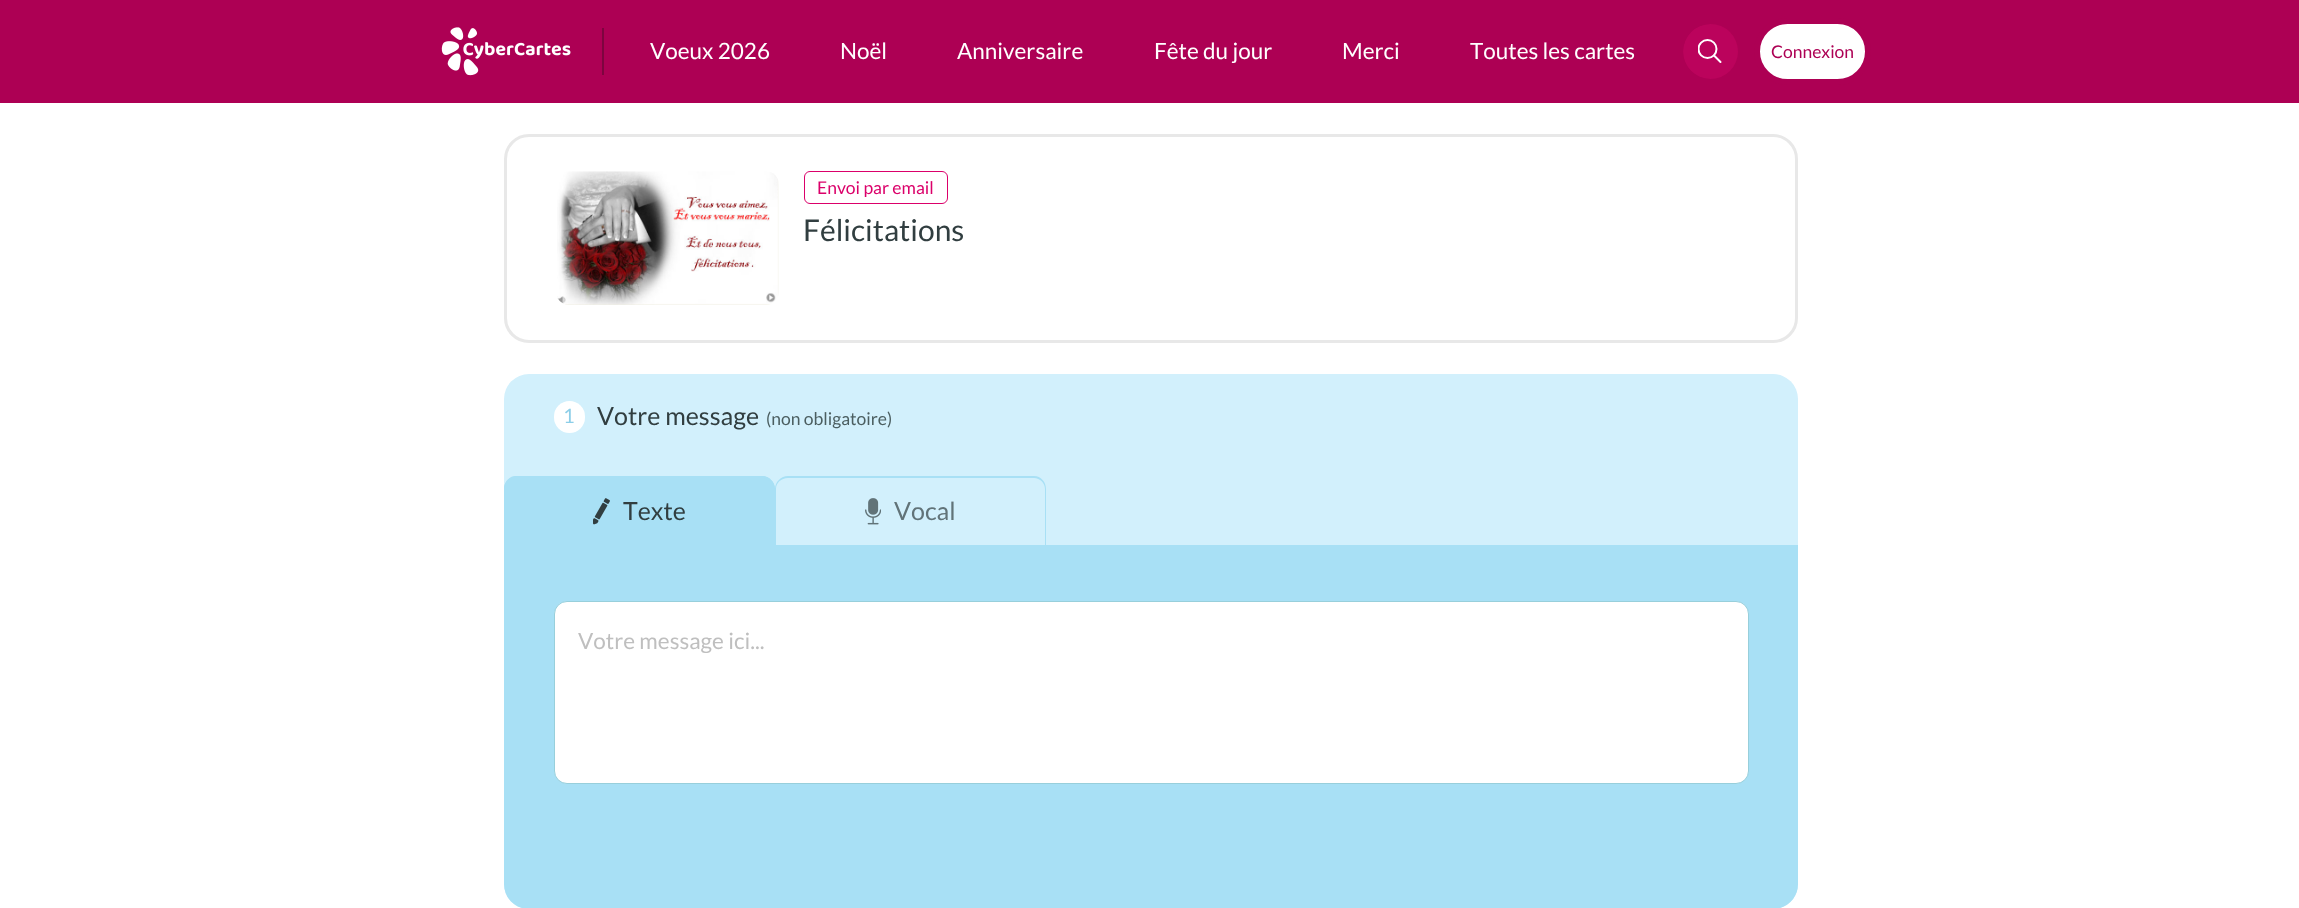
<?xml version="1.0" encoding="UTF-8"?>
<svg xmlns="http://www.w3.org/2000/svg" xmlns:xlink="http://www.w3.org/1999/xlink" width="2299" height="908">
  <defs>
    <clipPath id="clip1"><rect x="1683" y="24" width="65" height="55" rx="27.5" /></clipPath>
    <clipPath id="clip2"><rect x="1698" y="36" width="25" height="30" /></clipPath>
  </defs>
  <rect width="100%" height="100%" fill="#ffffff" />
  <rect width="2299" height="103" fill="#ad0054" />
  <rect x="602" y="28" width="2" height="47" fill="#7e043f" />
  <image x="441" y="27" width="130" height="49" xlink:href="image1.png" />
  <g clip-path="url(#clip1)">
    <circle cx="1710.5" cy="51.5" r="27.5" fill="#bb035c" />
  </g>
  <path d="M 1714 55.5 l 6.5 6.5" fill="none" stroke="#ffffff" stroke-width="2" stroke-linecap="round" />
  <g clip-path="url(#clip2)">
    <circle cx="1707.5" cy="49" r="9" fill="none" stroke="#ffffff" stroke-width="2" />
  </g>
  <rect x="1757" y="21" width="111" height="61" rx="30.5" fill="#ffffff" stroke="#ad0054" stroke-width="6" />
  <rect x="505.5" y="135.5" width="1291" height="206" rx="23.5" fill="none" stroke="#e8e8e8" stroke-width="3" />
  <image x="557" y="171" width="222" height="134" xlink:href="image2.png" />
  <rect x="804.5" y="171.5" width="143" height="32" rx="5.5" fill="none" stroke="#db006a" />
  <rect x="504" y="374" width="1294" height="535" rx="25" fill="#d2f0fc" />
  <rect x="554" y="401" width="31" height="32" rx="15.5" fill="#ffffff" />
  <path d="M 517 476 h 245 c 7 0 13 6 13 13 v 56 h -271 v -56 c 0 -7 6 -13 13 -13 z" fill="#a8e0f5" />
  <path d="M 516 476 h 246 c 7 0 13 6 13 13 v 56 h -271 v -56 c 0 -7 5 -13 12 -13 z m 0 2 h 246 c 7 0 12 5 12 11 v 56 h -269 v -56 c 0 -6 5 -11 11 -11 z" fill="#a8e0f5" fill-rule="evenodd" />
  <image x="593" y="498" width="17" height="27" xlink:href="image3.png" />
  <path d="M 788 476 h 246 c 7 0 12 6 12 13 v 56 h -271 v -56 c 0 -7 6 -13 13 -13 z m 0 2 h 246 c 6 0 11 5 11 11 v 56 h -269 v -56 c 0 -6 5 -11 12 -11 z" fill="#a8e0f5" fill-rule="evenodd" />
  <image x="865" y="498" width="16" height="27" xlink:href="image4.png" />
  <path d="M 504 545 h 1294 v 339 c 0 14 -11 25 -25 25 h -1244 c -14 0 -25 -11 -25 -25 z" fill="#a8e0f5" />
  <rect x="554.5" y="601.5" width="1194" height="182" rx="12.5" fill="#ffffff" stroke="#98cfdb" />
  <text x="650" y="59" style="font-family: Lato; font-size: 22.5px; fill: #ffffff">Voeux 2026</text>
  <text x="840" y="59" style="font-family: Lato; font-size: 22.5px; fill: #ffffff">Noël</text>
  <text x="957" y="59" style="font-family: Lato; font-size: 22.5px; fill: #ffffff">Anniversaire</text>
  <text x="1154" y="59" style="font-family: Lato; font-size: 22.5px; fill: #ffffff">Fête du jour</text>
  <text x="1342" y="59" style="font-family: Lato; font-size: 22.5px; fill: #ffffff">Merci</text>
  <text x="1470" y="59" style="font-family: Lato; font-size: 22.5px; fill: #ffffff">Toutes les cartes</text>
  <text x="1771" y="58" style="font-family: Lato; font-size: 17.5px; fill: #ad0054">Connexion</text>
  <text x="817" y="194" style="font-family: Lato; font-size: 17.5px; fill: #db006a">Envoi par email</text>
  <text x="803" y="241" style="font-family: Lato; font-size: 30px; fill: #313e40">Félicitations</text>
  <text x="563" y="423" style="font-family: Lato; font-size: 20px; fill: #8ccee8">1</text>
  <text x="597" y="425" style="font-family: Lato; font-size: 25px; fill: #313e40">Votre message</text>
  <text x="766" y="425" style="font-family: Lato; font-size: 17.5px; fill: #4b5e60">(non obligatoire)</text>
  <text x="623" y="520" style="font-family: Lato; font-size: 25px; fill: #313e40">Texte</text>
  <text x="894" y="520" style="font-family: Lato; font-size: 25px; fill: #617378">Vocal</text>
  <text x="578" y="649" style="font-family: Lato; font-size: 22.5px; fill: #bfbfbf">Votre message ici...</text>
</svg>
